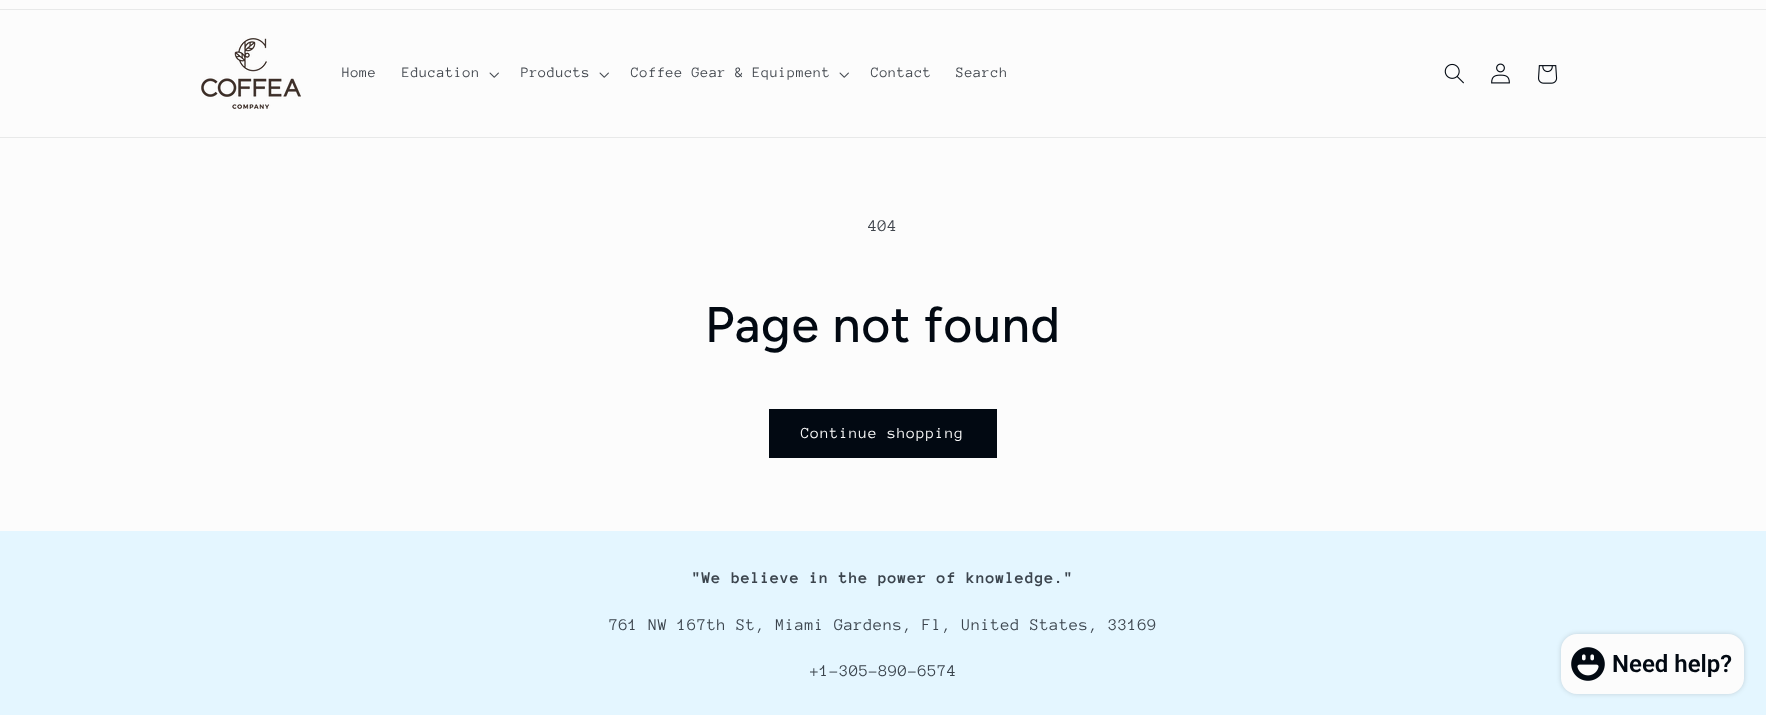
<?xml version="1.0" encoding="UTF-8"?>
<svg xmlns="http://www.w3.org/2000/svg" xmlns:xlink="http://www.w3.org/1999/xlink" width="1766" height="715">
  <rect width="100%" height="100%" fill="#fcfcfc" />
  <rect y="9" width="1766" height="1" fill="#e8e9e9" />
  <rect y="137" width="1766" height="1" fill="#e8e9e9" />
  <image x="201" y="38" width="100" height="71" xlink:href="image1.png" />
  <image x="489" y="72" width="10" height="6" xlink:href="image2.png" />
  <image x="599" y="72" width="10" height="6" xlink:href="image2.png" />
  <image x="839" y="72" width="10" height="6" xlink:href="image2.png" />
  <image x="1444" y="63" width="20" height="21" xlink:href="image3.png" />
  <image x="1491" y="63" width="19" height="21" xlink:href="image4.png" />
  <image x="1538" y="65" width="20" height="19" xlink:href="image5.png" />
  <rect x="769" y="409" width="228" height="49" fill="#020912" />
  <rect y="531" width="1766" height="184" fill="#e4f6ff" />
  <rect x="1561" y="634" width="183" height="60" rx="16" fill="#000000" fill-opacity="0.15" filter="blur(2.5px)" />
  <rect x="1561" y="634" width="183" height="60" rx="16" fill="#fcfcfc" />
  <image x="1571" y="647" width="34" height="34" xlink:href="image6.png" />
  <text x="342" y="77" style="font-family: Anonymous Pro; font-size: 14.75px; letter-spacing: 0.63px; fill: #41464d">Home</text>
  <text x="402" y="77" style="font-family: Anonymous Pro; font-size: 14.75px; letter-spacing: 0.63px; fill: #41464d">Education</text>
  <text x="521" y="77" style="font-family: Anonymous Pro; font-size: 14.75px; letter-spacing: 0.63px; fill: #41464d">Products</text>
  <text x="631" y="77" style="font-family: Anonymous Pro; font-size: 14.75px; letter-spacing: 0.63px; fill: #41464d">Coffee Gear &amp; Equipment</text>
  <text x="871" y="77" style="font-family: Anonymous Pro; font-size: 14.75px; letter-spacing: 0.63px; fill: #41464d">Contact</text>
  <text x="956" y="77" style="font-family: Anonymous Pro; font-size: 14.75px; letter-spacing: 0.63px; fill: #41464d">Search</text>
  <text x="868" y="231" style="font-family: Anonymous Pro; font-size: 16.8px; letter-spacing: 0.63px; fill: #41464d">404</text>
  <text x="705" y="342" style="font-family: Figtree; font-size: 50px; font-weight: 500; letter-spacing: 0.75px; fill: #020912">Page not found</text>
  <text x="801" y="438" style="font-family: Anonymous Pro; font-size: 15.75px; letter-spacing: 1px; fill: #fcfcfc">Continue shopping</text>
  <text x="692" y="583" style="font-family: Anonymous Pro; font-size: 16.8px; font-weight: bold; letter-spacing: 0.63px; fill: #3b444d">"We believe in the power of knowledge."</text>
  <text x="609" y="630" style="font-family: Anonymous Pro; font-size: 16.8px; letter-spacing: 0.63px; fill: #3b444d">761 NW 167th St, Miami Gardens, Fl, United States, 33169</text>
  <text x="810" y="676" style="font-family: Anonymous Pro; font-size: 16.8px; letter-spacing: 0.63px; fill: #3b444d">+1-305-890-6574</text>
  <text x="1612" y="672" style="font-family: Roboto; font-size: 24px; font-weight: 600; fill: #020912">Need help?</text>
</svg>
